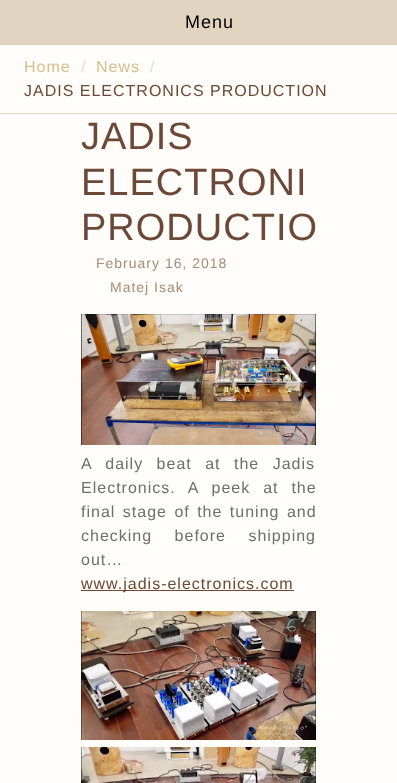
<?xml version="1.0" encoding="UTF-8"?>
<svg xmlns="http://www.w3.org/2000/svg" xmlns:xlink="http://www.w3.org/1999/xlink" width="397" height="783">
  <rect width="100%" height="100%" fill="#fffdf9" />
  <rect width="397" height="45" fill="#e1d4c1" />
  <rect y="113" width="397" height="1" fill="#e1d4c1" />
  <image x="81" y="314" width="235" height="131" xlink:href="image1.png" />
  <rect x="81" y="590" width="213" height="1" fill="#6b4838" />
  <image x="81" y="611" width="235" height="129" xlink:href="image2.png" />
  <image x="81" y="747" width="235" height="36" xlink:href="image3.png" />
  <text x="185" y="28" style="font-family: Liberation Sans; font-size: 18px; letter-spacing: 1px; fill: #000000">Menu</text>
  <text x="24" y="72" style="font-family: Liberation Sans; font-size: 16px; letter-spacing: 1px; fill: #d7bd8b">Home</text>
  <text x="81" y="72" style="font-family: Liberation Sans; font-size: 16px; letter-spacing: 1px; fill: #dddddd">/</text>
  <text x="96" y="72" style="font-family: Liberation Sans; font-size: 16px; letter-spacing: 1px; fill: #d7bd8b">News</text>
  <text x="150" y="72" style="font-family: Liberation Sans; font-size: 16px; letter-spacing: 1px; fill: #dddddd">/</text>
  <text x="24" y="96" style="font-family: Liberation Sans; font-size: 16px; letter-spacing: 1px; fill: #6b4838">JADIS ELECTRONICS PRODUCTION</text>
  <text x="81" y="149" style="font-family: Liberation Sans; font-size: 38px; letter-spacing: 1px; fill: #6b4838">JADIS</text>
  <text x="81" y="195" style="font-family: Liberation Sans; font-size: 38px; letter-spacing: 1px; fill: #6b4838">ELECTRONI</text>
  <text x="81" y="240" style="font-family: Liberation Sans; font-size: 38px; letter-spacing: 1px; fill: #6b4838">PRODUCTIO</text>
  <text x="96" y="268" style="font-family: Liberation Sans; font-size: 14px; letter-spacing: 1px; fill: #a78c77">February 16, 2018</text>
  <text x="110" y="292" style="font-family: Liberation Sans; font-size: 14px; letter-spacing: 1px; fill: #a78c77">Matej Isak</text>
  <text x="81" y="469" word-spacing="8" style="font-family: Liberation Sans; font-size: 16px; letter-spacing: 1px; fill: #6f6e6e">A daily beat at the Jadis</text>
  <text x="81" y="493" word-spacing="7.5" style="font-family: Liberation Sans; font-size: 16px; letter-spacing: 1px; fill: #6f6e6e">Electronics. A peek at the</text>
  <text x="81" y="517" word-spacing="2" style="font-family: Liberation Sans; font-size: 16px; letter-spacing: 1px; fill: #6f6e6e">final stage of the tuning and</text>
  <text x="81" y="541" word-spacing="17" style="font-family: Liberation Sans; font-size: 16px; letter-spacing: 1px; fill: #6f6e6e">checking before shipping</text>
  <text x="81" y="565" style="font-family: Liberation Sans; font-size: 16px; letter-spacing: 1px; fill: #6f6e6e">out…</text>
  <text x="81" y="589" style="font-family: Liberation Sans; font-size: 16px; letter-spacing: 1px; fill: #6b4838">www.jadis-electronics.com</text>
</svg>
